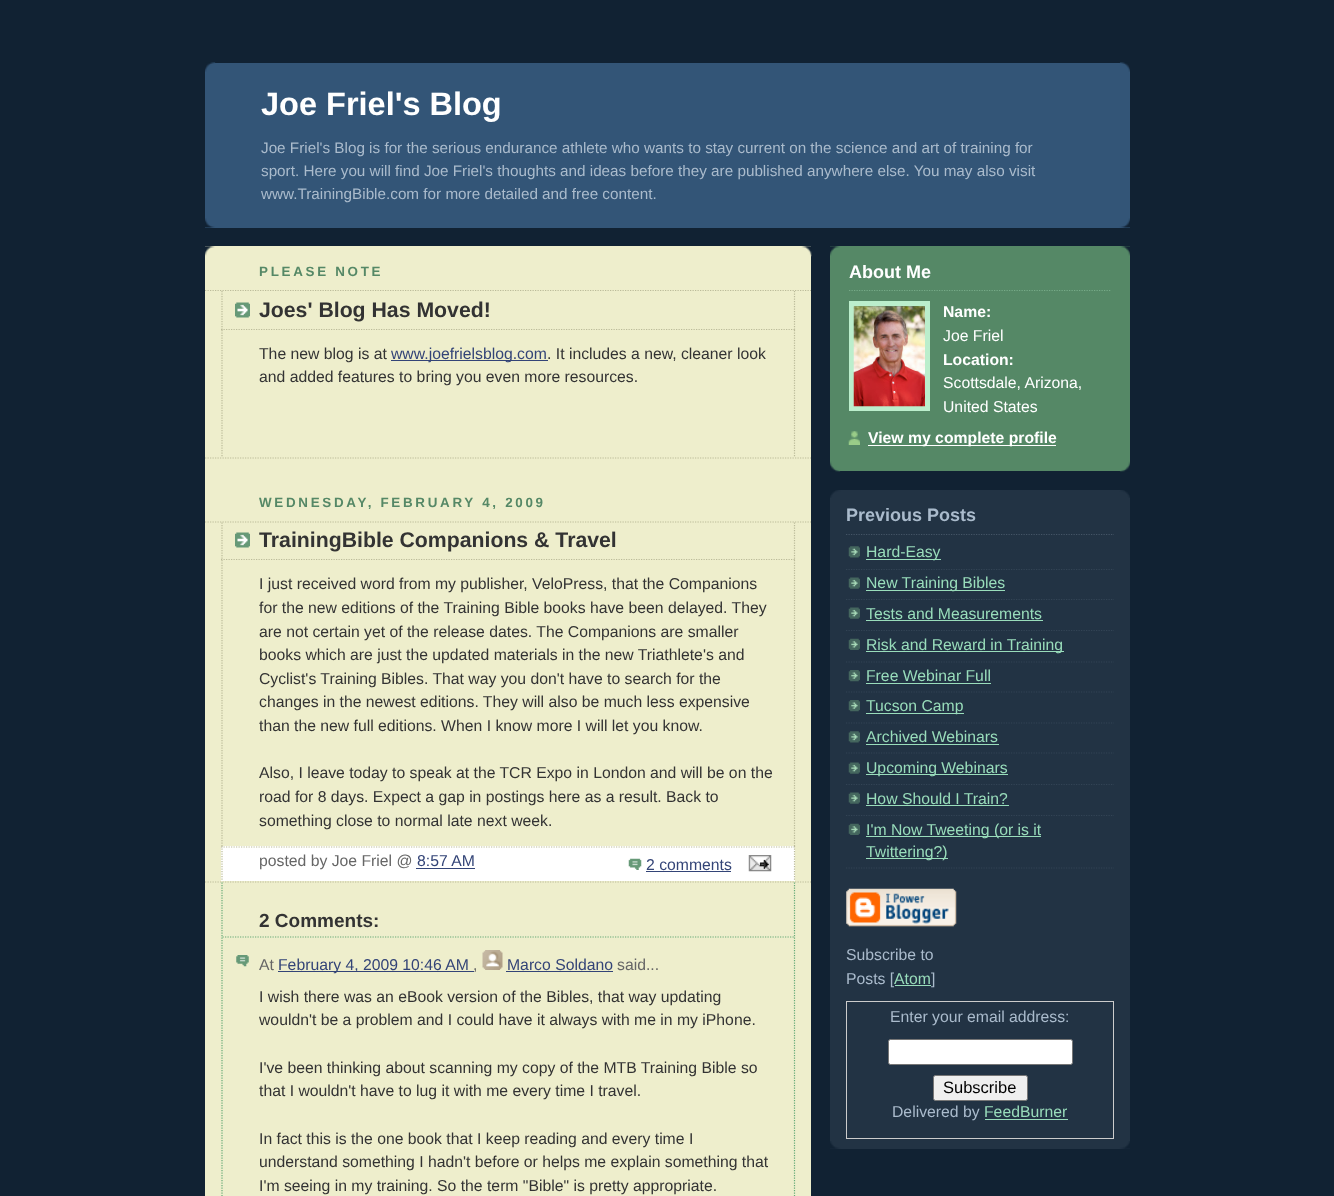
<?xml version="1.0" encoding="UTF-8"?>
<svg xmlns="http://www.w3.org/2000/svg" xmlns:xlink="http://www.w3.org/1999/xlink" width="1334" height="1196">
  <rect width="100%" height="100%" fill="#112233" />
  <rect x="205" y="63" width="925" height="165" fill="#335577" />
  <image x="205" y="218" width="925" height="10" xlink:href="image1.png" />
  <image x="205" y="62" width="925" height="10" xlink:href="image2.png" />
  <rect x="205" y="246" width="606" height="950" fill="#eeeecc" />
  <image x="205" y="246" width="607" height="11" xlink:href="image3.png" />
  <path d="M 205 290.5 h 606" fill="none" stroke="#bbbb99" stroke-width="1.2" stroke-dasharray="1.25 1.25" />
  <path d="M 205 458 h 606" fill="none" stroke="#bbbb99" stroke-width="1.2" stroke-dasharray="1.25 1.25" />
  <image x="235" y="302" width="15" height="16" xlink:href="image4.png" />
  <path d="M 794.5 291 v 39" fill="none" stroke="#bbbb99" stroke-width="1.2" stroke-dasharray="1.25 1.25" />
  <path d="M 221 329.5 h 574" fill="none" stroke="#bbbb99" stroke-width="1.2" stroke-dasharray="1.25 1.25" />
  <path d="M 222 291 v 39" fill="none" stroke="#bbbb99" stroke-width="1.2" stroke-dasharray="1.25 1.25" />
  <path d="M 794.5 330 v 127.5" fill="none" stroke="#bbbb99" stroke-width="1.2" stroke-dasharray="1.25 1.25" />
  <path d="M 222 330 v 127.5" fill="none" stroke="#bbbb99" stroke-width="1.2" stroke-dasharray="1.25 1.25" />
  <rect x="391" y="360" width="157" height="1" fill="#334477" />
  <path d="M 205 522 h 606" fill="none" stroke="#bbbb99" stroke-width="1.2" stroke-dasharray="1.25 1.25" />
  <path d="M 205 882 h 606" fill="none" stroke="#bbbb99" stroke-width="1.2" stroke-dasharray="1.25 1.25" />
  <image x="235" y="532" width="15" height="16" xlink:href="image4.png" />
  <path d="M 794.5 522.5 v 37.5" fill="none" stroke="#bbbb99" stroke-width="1.2" stroke-dasharray="1.25 1.25" />
  <path d="M 221 559.5 h 574" fill="none" stroke="#bbbb99" stroke-width="1.2" stroke-dasharray="1.25 1.25" />
  <path d="M 222 522.5 v 37.5" fill="none" stroke="#bbbb99" stroke-width="1.2" stroke-dasharray="1.25 1.25" />
  <path d="M 794.5 560 v 286" fill="none" stroke="#bbbb99" stroke-width="1.2" stroke-dasharray="1.25 1.25" />
  <path d="M 222 560 v 286" fill="none" stroke="#bbbb99" stroke-width="1.2" stroke-dasharray="1.25 1.25" />
  <rect x="221" y="846" width="574" height="35" fill="#ffffff" />
  <path d="M 221 847 h 574" fill="none" stroke="#bbbb99" stroke-width="1.2" stroke-dasharray="1.25 1.25" />
  <path d="M 794.5 846 v 35" fill="none" stroke="#bbbb99" stroke-width="1.2" stroke-dasharray="1.25 1.25" />
  <path d="M 222 846 v 35" fill="none" stroke="#bbbb99" stroke-width="1.2" stroke-dasharray="1.25 1.25" />
  <rect x="416" y="868" width="59" height="1" fill="#334477" />
  <image x="628" y="858" width="14" height="12" xlink:href="image5.png" />
  <rect x="646" y="871" width="85" height="1" fill="#334477" />
  <image x="748" y="855" width="24" height="17" xlink:href="image6.png" />
  <path d="M 794.5 882.5 v 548.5" fill="none" stroke="#66aa77" stroke-width="1.2" stroke-dasharray="1.25 1.25" />
  <path d="M 222 882.5 v 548.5" fill="none" stroke="#66aa77" stroke-width="1.2" stroke-dasharray="1.25 1.25" />
  <path d="M 222.5 937 h 571.5" fill="none" stroke="#66aa77" stroke-width="1.2" stroke-dasharray="1.25 1.25" />
  <image x="236" y="955" width="13" height="12" xlink:href="image7.png" />
  <rect x="278" y="971" width="196" height="1" fill="#334477" />
  <image x="482" y="950" width="21" height="20" xlink:href="image8.png" />
  <rect x="506" y="971" width="107" height="1" fill="#334477" />
  <rect x="830" y="246" width="300" height="225" fill="#558866" />
  <image x="830" y="461" width="300" height="11" xlink:href="image9.png" />
  <image x="830" y="246" width="300" height="10" xlink:href="image10.png" />
  <path d="M 849 290.5 h 262" fill="none" stroke="#77aa88" stroke-width="1.2" stroke-dasharray="1.25 1.25" />
  <rect x="851.5" y="303.5" width="76" height="105" fill="none" stroke="#bbeecc" stroke-width="5" />
  <image x="853" y="306" width="72" height="101" xlink:href="image11.png" />
  <image x="848" y="431" width="12" height="14" xlink:href="image12.png" />
  <rect x="868" y="445" width="188" height="1" fill="#ffffff" />
  <rect x="830" y="490" width="300" height="659" fill="#223344" />
  <image x="830" y="490" width="300" height="8" xlink:href="image13.png" />
  <image x="830" y="1141" width="300" height="8" xlink:href="image14.png" />
  <path d="M 846 534.5 h 268" fill="none" stroke="#445566" stroke-width="1.2" stroke-dasharray="1.25 1.25" />
  <image x="848" y="546" width="12" height="12" xlink:href="image15.png" />
  <path d="M 846 569.5 h 268" fill="none" stroke="#334455" stroke-width="1.2" stroke-dasharray="1.25 1.25" />
  <rect x="866" y="559" width="75" height="1" fill="#99ddbb" />
  <image x="848" y="577" width="12" height="12" xlink:href="image16.png" />
  <path d="M 846 599.5 h 268" fill="none" stroke="#334455" stroke-width="1.2" stroke-dasharray="1.25 1.25" />
  <rect x="866" y="590" width="139" height="1" fill="#99ddbb" />
  <image x="848" y="607" width="12" height="12" xlink:href="image16.png" />
  <path d="M 846 630.5 h 268" fill="none" stroke="#334455" stroke-width="1.2" stroke-dasharray="1.25 1.25" />
  <rect x="866" y="620" width="177" height="1" fill="#99ddbb" />
  <image x="848" y="638" width="12" height="12" xlink:href="image17.png" />
  <path d="M 846 662 h 268" fill="none" stroke="#334455" stroke-width="1.2" stroke-dasharray="1.25 1.25" />
  <rect x="866" y="651" width="198" height="1" fill="#99ddbb" />
  <image x="848" y="670" width="12" height="12" xlink:href="image18.png" />
  <path d="M 846 692 h 268" fill="none" stroke="#334455" stroke-width="1.2" stroke-dasharray="1.25 1.25" />
  <rect x="866" y="683" width="125" height="1" fill="#99ddbb" />
  <image x="848" y="700" width="12" height="12" xlink:href="image18.png" />
  <path d="M 846 723 h 268" fill="none" stroke="#334455" stroke-width="1.2" stroke-dasharray="1.25 1.25" />
  <rect x="866" y="713" width="98" height="1" fill="#99ddbb" />
  <image x="848" y="731" width="12" height="12" xlink:href="image15.png" />
  <path d="M 846 753 h 268" fill="none" stroke="#334455" stroke-width="1.2" stroke-dasharray="1.25 1.25" />
  <rect x="866" y="744" width="133" height="1" fill="#99ddbb" />
  <image x="848" y="762" width="12" height="12" xlink:href="image16.png" />
  <path d="M 846 784.5 h 268" fill="none" stroke="#334455" stroke-width="1.2" stroke-dasharray="1.25 1.25" />
  <rect x="866" y="774" width="142" height="1" fill="#99ddbb" />
  <image x="848" y="792" width="12" height="12" xlink:href="image16.png" />
  <path d="M 846 815.5 h 268" fill="none" stroke="#334455" stroke-width="1.2" stroke-dasharray="1.25 1.25" />
  <rect x="866" y="805" width="143" height="1" fill="#99ddbb" />
  <image x="848" y="823" width="12" height="12" xlink:href="image17.png" />
  <path d="M 846 868 h 268" fill="none" stroke="#334455" stroke-width="1.2" stroke-dasharray="1.25 1.25" />
  <rect x="866" y="836" width="175" height="1" fill="#99ddbb" />
  <rect x="866" y="858" width="82" height="1" fill="#99ddbb" />
  <image x="846" y="888" width="111" height="39" xlink:href="image19.png" />
  <rect x="895" y="985" width="36" height="1" fill="#99ddbb" />
  <rect x="846.5" y="1001.5" width="267" height="137" fill="none" stroke="#cccccc" />
  <rect x="888.5" y="1039.5" width="184" height="25" rx="2" fill="#ffffff" stroke="#767676" />
  <rect x="933.5" y="1075.5" width="94" height="25" rx="2" fill="#efefef" stroke="#767676" />
  <rect x="985" y="1119" width="83" height="1" fill="#99ddbb" />
  <text x="261" y="115" style="font-family: Liberation Sans; font-size: 32.5px; font-weight: bold; fill: #ffffff">Joe Friel's Blog</text>
  <text x="261" y="153" style="font-family: Liberation Sans; font-size: 15.28px; fill: #aabbcc">Joe Friel's Blog is for the serious endurance athlete who wants to stay current on the science and art of training for</text>
  <text x="261" y="176" style="font-family: Liberation Sans; font-size: 15.28px; fill: #aabbcc">sport. Here you will find Joe Friel's thoughts and ideas before they are published anywhere else. You may also visit</text>
  <text x="261" y="199" style="font-family: Liberation Sans; font-size: 15.28px; fill: #aabbcc">www.TrainingBible.com for more detailed and free content.</text>
  <text x="259" y="276" style="font-family: Liberation Sans; font-size: 13.4px; font-weight: bold; letter-spacing: 2.7px; fill: #558866">PLEASE NOTE</text>
  <text x="259" y="317" style="font-family: Liberation Sans; font-size: 21.25px; font-weight: bold; fill: #333333">Joes' Blog Has Moved!</text>
  <text x="259" y="359" style="font-family: Liberation Sans; font-size: 15.75px; fill: #333333">The new blog is at</text>
  <text x="391" y="359" style="font-family: Liberation Sans; font-size: 15.75px; fill: #334477">www.joefrielsblog.com</text>
  <text x="547" y="359" style="font-family: Liberation Sans; font-size: 15.75px; fill: #333333">. It includes a new, cleaner look</text>
  <text x="259" y="382" style="font-family: Liberation Sans; font-size: 15.75px; fill: #333333">and added features to bring you even more resources.</text>
  <text x="259" y="507" style="font-family: Liberation Sans; font-size: 13.4px; font-weight: bold; letter-spacing: 2.7px; fill: #558866">WEDNESDAY, FEBRUARY 4, 2009</text>
  <text x="259" y="547" style="font-family: Liberation Sans; font-size: 21.25px; font-weight: bold; fill: #333333">TrainingBible Companions &amp; Travel</text>
  <text x="259" y="589" style="font-family: Liberation Sans; font-size: 15.75px; fill: #333333">I just received word from my publisher, VeloPress, that the Companions</text>
  <text x="259" y="613" style="font-family: Liberation Sans; font-size: 15.75px; fill: #333333">for the new editions of the Training Bible books have been delayed. They</text>
  <text x="259" y="637" style="font-family: Liberation Sans; font-size: 15.75px; fill: #333333">are not certain yet of the release dates. The Companions are smaller</text>
  <text x="259" y="660" style="font-family: Liberation Sans; font-size: 15.75px; fill: #333333">books which are just the updated materials in the new Triathlete's and</text>
  <text x="259" y="684" style="font-family: Liberation Sans; font-size: 15.75px; fill: #333333">Cyclist's Training Bibles. That way you don't have to search for the</text>
  <text x="259" y="707" style="font-family: Liberation Sans; font-size: 15.75px; fill: #333333">changes in the newest editions. They will also be much less expensive</text>
  <text x="259" y="731" style="font-family: Liberation Sans; font-size: 15.75px; fill: #333333">than the new full editions. When I know more I will let you know.</text>
  <text x="259" y="778" style="font-family: Liberation Sans; font-size: 15.75px; fill: #333333">Also, I leave today to speak at the TCR Expo in London and will be on the</text>
  <text x="259" y="802" style="font-family: Liberation Sans; font-size: 15.75px; fill: #333333">road for 8 days. Expect a gap in postings here as a result. Back to</text>
  <text x="259" y="826" style="font-family: Liberation Sans; font-size: 15.75px; fill: #333333">something close to normal late next week.</text>
  <text x="259" y="866" style="font-family: Liberation Sans; font-size: 15.75px; fill: #666666">posted by Joe Friel @</text>
  <text x="417" y="866" style="font-family: Liberation Sans; font-size: 15.75px; fill: #334477">8:57 AM</text>
  <text x="646" y="870" style="font-family: Liberation Sans; font-size: 15.75px; fill: #334477">2 comments</text>
  <text x="259" y="927" style="font-family: Liberation Sans; font-size: 19px; font-weight: bold; fill: #333333">2 Comments:</text>
  <text x="259" y="970" style="font-family: Liberation Sans; font-size: 15.75px; fill: #666666">At</text>
  <text x="278" y="970" style="font-family: Liberation Sans; font-size: 15.75px; fill: #334477">February 4, 2009 10:46 AM</text>
  <text x="473" y="970" style="font-family: Liberation Sans; font-size: 15.75px; fill: #666666">,</text>
  <text x="507" y="970" style="font-family: Liberation Sans; font-size: 15.75px; fill: #334477">Marco Soldano</text>
  <text x="617" y="970" style="font-family: Liberation Sans; font-size: 15.75px; fill: #666666">said...</text>
  <text x="259" y="1002" style="font-family: Liberation Sans; font-size: 15.75px; fill: #333333">I wish there was an eBook version of the Bibles, that way updating</text>
  <text x="259" y="1025" style="font-family: Liberation Sans; font-size: 15.75px; fill: #333333">wouldn't be a problem and I could have it always with me in my iPhone.</text>
  <text x="259" y="1073" style="font-family: Liberation Sans; font-size: 15.75px; fill: #333333">I've been thinking about scanning my copy of the MTB Training Bible so</text>
  <text x="259" y="1096" style="font-family: Liberation Sans; font-size: 15.75px; fill: #333333">that I wouldn't have to lug it with me every time I travel.</text>
  <text x="259" y="1144" style="font-family: Liberation Sans; font-size: 15.75px; fill: #333333">In fact this is the one book that I keep reading and every time I</text>
  <text x="259" y="1167" style="font-family: Liberation Sans; font-size: 15.75px; fill: #333333">understand something I hadn't before or helps me explain something that</text>
  <text x="259" y="1191" style="font-family: Liberation Sans; font-size: 15.75px; fill: #333333">I'm seeing in my training. So the term "Bible" is pretty appropriate.</text>
  <text x="849" y="278" style="font-family: Liberation Sans; font-size: 18px; font-weight: bold; fill: #ffffff">About Me</text>
  <text x="943" y="317" style="font-family: Liberation Sans; font-size: 15.75px; font-weight: bold; fill: #ffffff">Name:</text>
  <text x="943" y="341" style="font-family: Liberation Sans; font-size: 15.75px; fill: #ffffff">Joe Friel</text>
  <text x="943" y="365" style="font-family: Liberation Sans; font-size: 15.75px; font-weight: bold; fill: #ffffff">Location:</text>
  <text x="943" y="388" style="font-family: Liberation Sans; font-size: 15.75px; fill: #ffffff">Scottsdale, Arizona,</text>
  <text x="943" y="412" style="font-family: Liberation Sans; font-size: 15.75px; fill: #ffffff">United States</text>
  <text x="868" y="443" style="font-family: Liberation Sans; font-size: 15.75px; font-weight: bold; fill: #ffffff">View my complete profile</text>
  <text x="846" y="521" style="font-family: Liberation Sans; font-size: 18px; font-weight: bold; fill: #aabbcc">Previous Posts</text>
  <text x="866" y="557" style="font-family: Liberation Sans; font-size: 15.75px; fill: #99ddbb">Hard-Easy</text>
  <text x="866" y="588" style="font-family: Liberation Sans; font-size: 15.75px; fill: #99ddbb">New Training Bibles</text>
  <text x="866" y="619" style="font-family: Liberation Sans; font-size: 15.75px; fill: #99ddbb">Tests and Measurements</text>
  <text x="866" y="650" style="font-family: Liberation Sans; font-size: 15.75px; fill: #99ddbb">Risk and Reward in Training</text>
  <text x="866" y="681" style="font-family: Liberation Sans; font-size: 15.75px; fill: #99ddbb">Free Webinar Full</text>
  <text x="866" y="711" style="font-family: Liberation Sans; font-size: 15.75px; fill: #99ddbb">Tucson Camp</text>
  <text x="866" y="742" style="font-family: Liberation Sans; font-size: 15.75px; fill: #99ddbb">Archived Webinars</text>
  <text x="866" y="773" style="font-family: Liberation Sans; font-size: 15.75px; fill: #99ddbb">Upcoming Webinars</text>
  <text x="866" y="804" style="font-family: Liberation Sans; font-size: 15.75px; fill: #99ddbb">How Should I Train?</text>
  <text x="866" y="835" style="font-family: Liberation Sans; font-size: 15.75px; fill: #99ddbb">I'm Now Tweeting (or is it</text>
  <text x="866" y="857" style="font-family: Liberation Sans; font-size: 15.75px; fill: #99ddbb">Twittering?)</text>
  <text x="846" y="960" style="font-family: Liberation Sans; font-size: 15.75px; fill: #aabbcc">Subscribe to</text>
  <text x="846" y="984" style="font-family: Liberation Sans; font-size: 15.75px; fill: #aabbcc">Posts [</text>
  <text x="894" y="984" style="font-family: Liberation Sans; font-size: 15.75px; fill: #99ddbb">Atom</text>
  <text x="931" y="984" style="font-family: Liberation Sans; font-size: 15.75px; fill: #aabbcc">]</text>
  <text x="890" y="1022" style="font-family: Liberation Sans; font-size: 15.75px; fill: #aabbcc">Enter your email address:</text>
  <text x="943" y="1093" style="font-family: Liberation Sans; font-size: 16.5px; fill: #000000">Subscribe</text>
  <text x="892" y="1117" style="font-family: Liberation Sans; font-size: 15.75px; fill: #aabbcc">Delivered by</text>
  <text x="984" y="1117" style="font-family: Liberation Sans; font-size: 15.75px; fill: #99ddbb">FeedBurner</text>
</svg>
